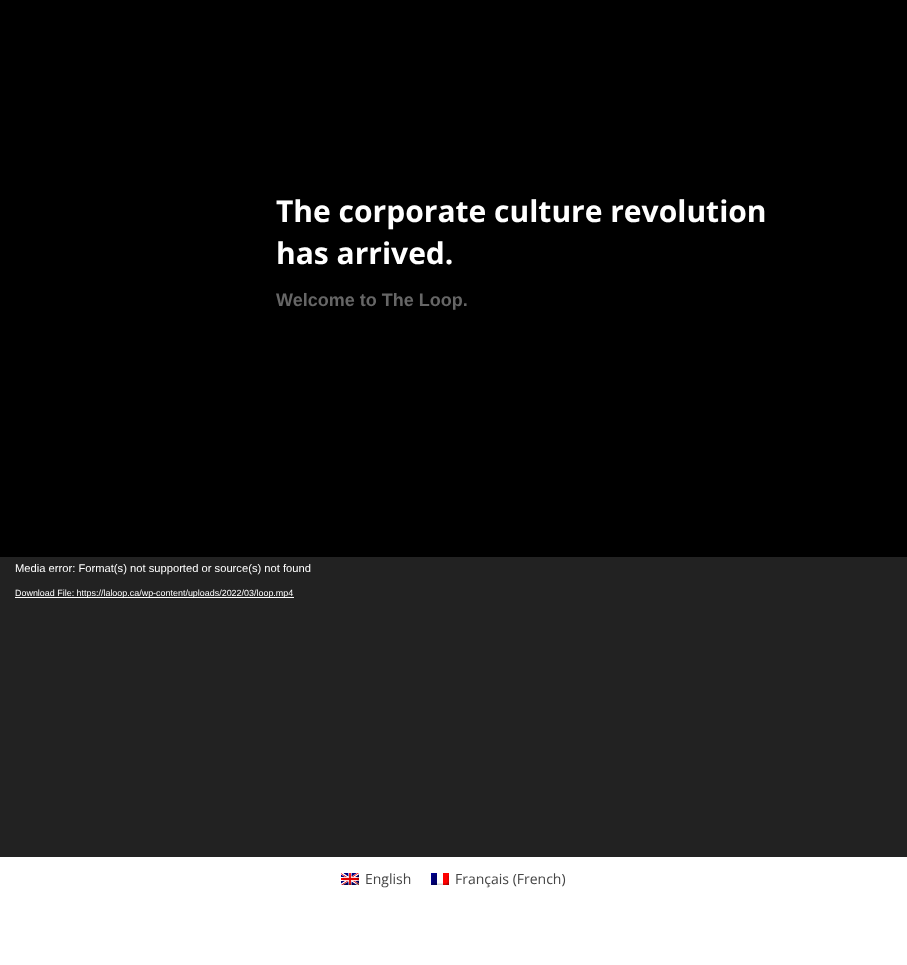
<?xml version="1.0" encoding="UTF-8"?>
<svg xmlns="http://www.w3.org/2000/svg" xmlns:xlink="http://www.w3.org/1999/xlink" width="907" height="965">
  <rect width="100%" height="100%" fill="#ffffff" />
  <rect width="907" height="557" fill="#000000" />
  <rect y="557" width="907" height="300" fill="#222222" />
  <rect x="15" y="597" width="279" height="1" fill="#ffffff" />
  <image x="341" y="873" width="18" height="12" xlink:href="image1.png" />
  <image x="431" y="873" width="18" height="12" xlink:href="image2.png" />
  <text x="276" y="222" style="font-family: Open Sans; font-size: 30px; font-weight: bold; fill: #ffffff">The corporate culture revolution</text>
  <text x="276" y="264" style="font-family: Open Sans; font-size: 30px; font-weight: bold; fill: #ffffff">has arrived.</text>
  <text x="276" y="306" style="font-family: Liberation Sans; font-size: 18px; font-weight: bold; fill: #666666">Welcome to The Loop.</text>
  <text x="15" y="572" style="font-family: Liberation Sans; font-size: 11.2px; fill: #ffffff">Media error: Format(s) not supported or source(s) not found</text>
  <text x="15" y="596" style="font-family: Liberation Sans; font-size: 8.95px; fill: #ffffff">Download File: https://laloop.ca/wp-content/uploads/2022/03/loop.mp4</text>
  <text x="365" y="884" style="font-family: Open Sans; font-size: 14px; fill: #444444">English</text>
  <text x="455" y="884" style="font-family: Open Sans; font-size: 14px; fill: #444444">Français (French)</text>
</svg>
